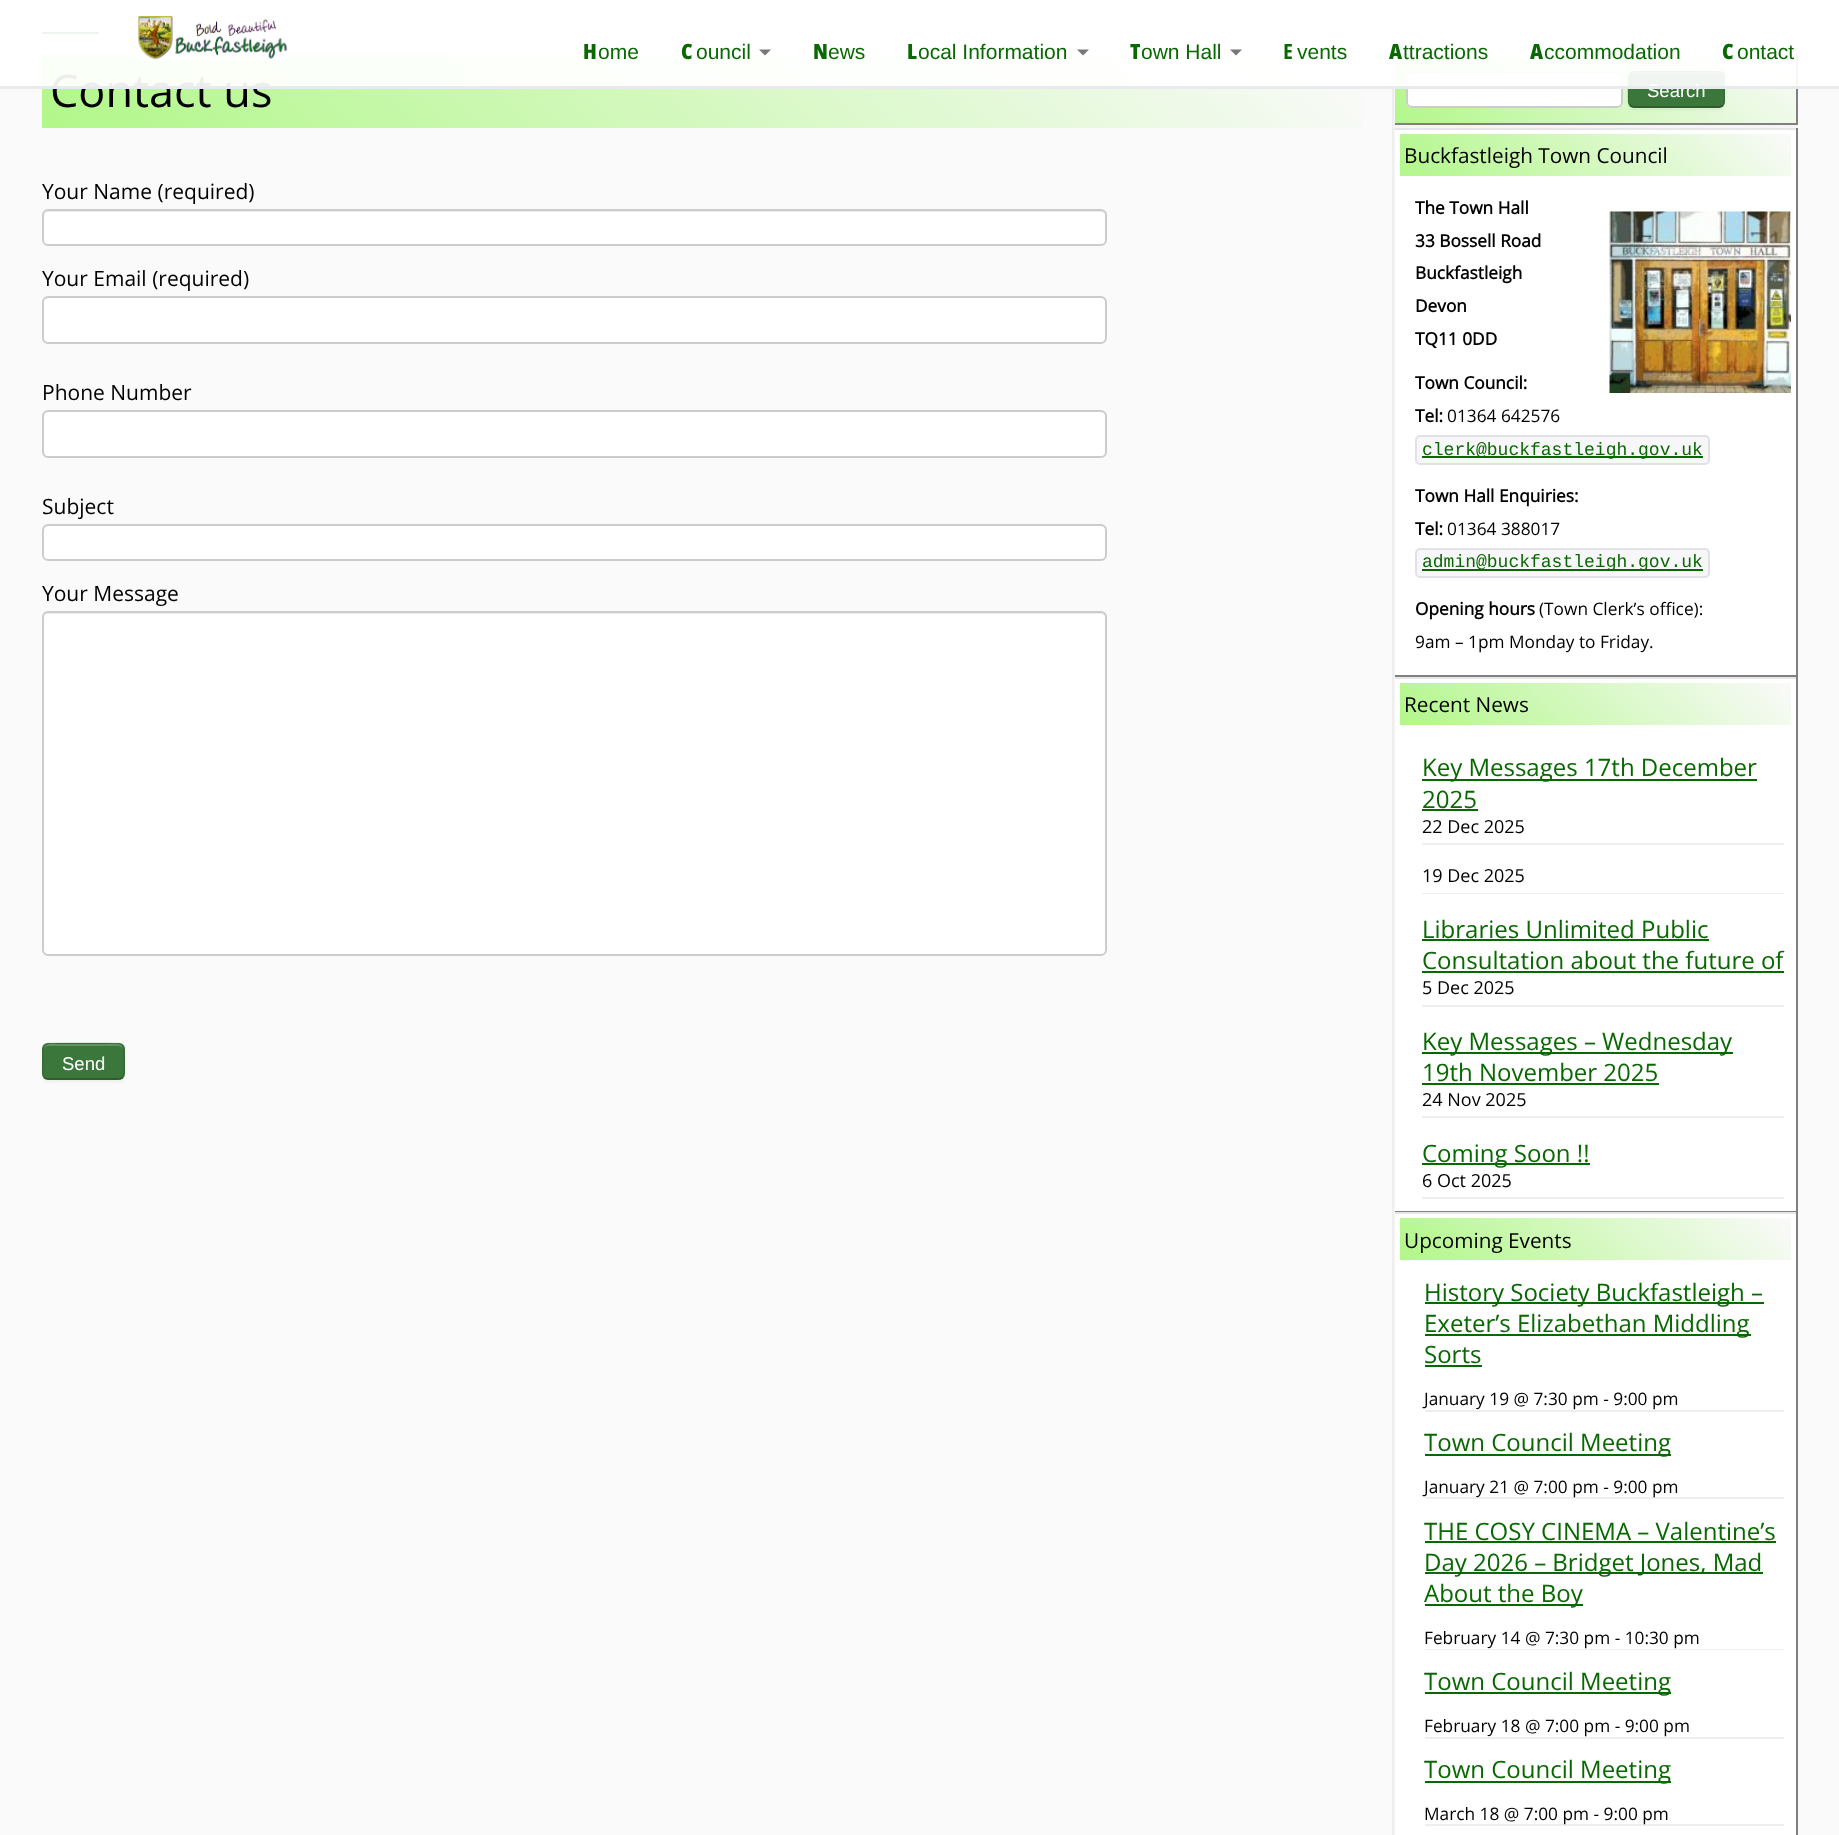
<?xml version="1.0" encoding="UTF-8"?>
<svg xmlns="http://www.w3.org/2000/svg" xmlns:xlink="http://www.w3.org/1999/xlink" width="1839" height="1835">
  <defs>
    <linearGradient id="g1" gradientUnits="userSpaceOnUse" x1="354" y1="440" x2="1050" y2="-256"><stop offset="0" stop-color="#b2f78a" /><stop offset="1" stop-color="#fafafa" /></linearGradient>
    <linearGradient id="g2" gradientUnits="userSpaceOnUse" x1="1478" y1="206" x2="1712" y2="-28"><stop offset="0" stop-color="#b2f78a" /><stop offset="1" stop-color="#fafafa" /></linearGradient>
    <linearGradient id="g3" gradientUnits="userSpaceOnUse" x1="1487" y1="263" x2="1704" y2="46"><stop offset="0" stop-color="#b2f78a" /><stop offset="1" stop-color="#fafafa" /></linearGradient>
    <linearGradient id="g4" gradientUnits="userSpaceOnUse" x1="1487" y1="812" x2="1704" y2="595"><stop offset="0" stop-color="#b2f78a" /><stop offset="1" stop-color="#fafafa" /></linearGradient>
    <linearGradient id="g5" gradientUnits="userSpaceOnUse" x1="1487" y1="1347" x2="1704" y2="1131"><stop offset="0" stop-color="#b2f78a" /><stop offset="1" stop-color="#fafafa" /></linearGradient>
  </defs>
  <rect width="100%" height="100%" fill="#fafafa" />
  <rect x="42" y="32" width="57" height="2" fill="#086801" />
  <rect x="42" y="56" width="1320" height="72" fill="url(#g1)" />
  <rect x="42" y="209" width="1065" height="37" rx="6" fill="#ffffff" />
  <path d="M 48 212 h 1053 c 2 0 5 2 5 4 c 0 -3 -2 -6 -5 -6 h -1052 c -3 0 -5 3 -5 6 c 0 -2 2 -4 4 -4 z" fill="#ececec" />
  <rect x="43" y="210" width="1063" height="35" rx="5" fill="none" stroke="#cccccc" stroke-width="2" />
  <rect x="42" y="296" width="1065" height="48" rx="6" fill="#ffffff" />
  <path d="M 48 298 h 1053 c 2 0 5 3 5 5 c 0 -3 -2 -6 -5 -6 h -1052 c -3 0 -5 3 -5 6 c 0 -2 2 -5 4 -5 z" fill="#ececec" />
  <rect x="43" y="297" width="1063" height="46" rx="5" fill="none" stroke="#cccccc" stroke-width="2" />
  <rect x="42" y="410" width="1065" height="48" rx="6" fill="#ffffff" />
  <path d="M 48 412 h 1053 c 2 0 5 3 5 5 c 0 -3 -2 -6 -5 -6 h -1052 c -3 0 -5 3 -5 6 c 0 -2 2 -5 4 -5 z" fill="#ececec" />
  <rect x="43" y="411" width="1063" height="46" rx="5" fill="none" stroke="#cccccc" stroke-width="2" />
  <rect x="42" y="524" width="1065" height="37" rx="6" fill="#ffffff" />
  <path d="M 48 526 h 1053 c 2 0 5 3 5 5 c 0 -3 -2 -6 -5 -6 h -1052 c -3 0 -5 3 -5 6 c 0 -2 2 -5 4 -5 z" fill="#ececec" />
  <rect x="43" y="525" width="1063" height="35" rx="5" fill="none" stroke="#cccccc" stroke-width="2" />
  <rect x="42" y="611" width="1065" height="345" rx="6" fill="#ffffff" />
  <path d="M 48 614 h 1053 c 2 0 5 2 5 4 c 0 -3 -2 -6 -5 -6 h -1052 c -3 0 -5 3 -5 6 c 0 -2 2 -4 4 -4 z" fill="#ececec" />
  <rect x="43" y="612" width="1063" height="343" rx="5" fill="none" stroke="#cccccc" stroke-width="2" />
  <rect x="42" y="1044" width="83" height="38" rx="6" fill="#000000" fill-opacity="0.05" filter="blur(1.5px)" />
  <rect x="42" y="1043" width="83" height="37" rx="6" fill="#3b763a" />
  <path d="M 48 1046 h 70 c 3 0 5 2 5 4 c 0 -9 -11 -6 -17 -6 h -46 c -5 0 -16 -3 -16 6 c 0 -2 2 -4 4 -4 z" fill="#629161" />
  <path d="M 122 1077.5 c -1 1 -2 1.5 -3.5 1.5 h -70.5 c -1.5 0 -2.5 -0.5 -3.5 -1.5" fill="none" stroke="#000000" stroke-opacity="0.25" stroke-width="1.5" />
  <path d="M 44.5 1077.5 c -3 -2.5 -1.5 -12.5 -1.5 -16.5 c 0 -19 -3 -18 17 -18 h 47 c 19.5 0 17 -1 17 18 c 0 4 1 14 -2 16.5" fill="none" stroke="#000000" stroke-opacity="0.1" stroke-width="1.5" />
  <rect x="1394" y="54" width="403" height="1781" fill="#f5f5f5" />
  <rect x="1392" y="54" width="2" height="1781" fill="#eeeeee" />
  <rect x="1395" y="56" width="401" height="67" fill="url(#g2)" />
  <rect x="1395" y="54" width="402" height="2" fill="#e6e6e6" />
  <rect x="1796" y="54" width="2" height="71" fill="#808080" />
  <rect x="1395" y="123" width="402" height="2" fill="#808080" />
  <rect x="1406" y="71" width="217" height="37" rx="6" fill="#ffffff" />
  <path d="M 1412 74 h 205 c 2 0 5 2 5 4 c 0 -3 -2 -6 -5 -6 h -206 c -3 1 -4 3 -4 6 c 0 -2 2 -4 5 -4 z" fill="#ececec" />
  <rect x="1407" y="72" width="215" height="35" rx="5" fill="none" stroke="#cccccc" stroke-width="2" />
  <rect x="1628" y="72" width="97" height="38" rx="6" fill="#000000" fill-opacity="0.05" filter="blur(1.5px)" />
  <rect x="1628" y="71" width="97" height="37" rx="6" fill="#3b763a" />
  <path d="M 1634 74 h 85 c 2 0 5 2 5 4 c 0 -10 -14 -6 -19 -6 h -57 c -5 0 -19 -4 -19 6 c 0 -2 2 -4 5 -4 z" fill="#629161" />
  <path d="M 1722.5 105.5 l -3 1.5 h -86.5 l -3 -1.5" fill="none" stroke="#000000" stroke-opacity="0.25" stroke-width="1.5" />
  <path d="M 1630 105.5 c -3 -2.5 -2 -12.5 -2 -16.5 c 0 -20 -2 -18 20 -18 h 57 c 21.5 0 19 -2 19 18 c 0 4 1.5 14 -1.5 16.5" fill="none" stroke="#000000" stroke-opacity="0.1" stroke-width="1.5" />
  <rect x="1395" y="130" width="401" height="545" fill="#ffffff" />
  <rect x="1395" y="128" width="402" height="2" fill="#e6e6e6" />
  <rect x="1796" y="128" width="2" height="549" fill="#808080" />
  <rect x="1395" y="675" width="402" height="2" fill="#808080" />
  <rect x="1400" y="134" width="391" height="42" fill="url(#g3)" />
  <image x="1609" y="211" width="182" height="182" xlink:href="image2.png" />
  <rect x="1416" y="436" width="293" height="28" rx="4" fill="#f7f7f9" stroke="#e1e1e8" stroke-width="2" />
  <rect x="1422" y="456" width="281" height="2" fill="#086801" />
  <rect x="1416" y="549" width="293" height="28" rx="4" fill="#f7f7f9" stroke="#e1e1e8" stroke-width="2" />
  <rect x="1422" y="569" width="281" height="2" fill="#086801" />
  <rect x="1395" y="679" width="401" height="532" fill="#ffffff" />
  <rect x="1395" y="677" width="402" height="2" fill="#e6e6e6" />
  <rect x="1796" y="677" width="2" height="535" fill="#808080" />
  <rect x="1395" y="1211" width="402" height="1" fill="#808080" />
  <rect x="1400" y="683" width="391" height="42" fill="url(#g4)" />
  <rect x="1422" y="843" width="362" height="2" fill="#eeeeee" />
  <rect x="1422" y="779" width="335" height="2" fill="#086801" />
  <rect x="1422" y="809" width="56" height="2" fill="#086801" />
  <rect x="1422" y="893" width="362" height="1" fill="#eeeeee" />
  <rect x="1422" y="1005" width="362" height="2" fill="#eeeeee" />
  <rect x="1422" y="939" width="287" height="2" fill="#086801" />
  <rect x="1422" y="971" width="362" height="2" fill="#086801" />
  <rect x="1422" y="1116" width="362" height="2" fill="#eeeeee" />
  <rect x="1422" y="1052" width="311" height="2" fill="#086801" />
  <rect x="1422" y="1083" width="237" height="2" fill="#086801" />
  <rect x="1422" y="1197" width="362" height="2" fill="#eeeeee" />
  <rect x="1422" y="1163" width="168" height="2" fill="#086801" />
  <rect x="1395" y="1214" width="401" height="621" fill="#ffffff" />
  <rect x="1395" y="1212" width="402" height="2" fill="#e6e6e6" />
  <rect x="1796" y="1212" width="2" height="623" fill="#808080" />
  <rect x="1400" y="1218" width="391" height="42" fill="url(#g5)" />
  <rect x="1425" y="1410" width="359" height="2" fill="#eeeeee" />
  <rect x="1425" y="1302" width="339" height="2" fill="#086801" />
  <rect x="1425" y="1334" width="326" height="2" fill="#086801" />
  <rect x="1425" y="1365" width="57" height="2" fill="#086801" />
  <rect x="1425" y="1497" width="359" height="2" fill="#eeeeee" />
  <rect x="1425" y="1454" width="246" height="2" fill="#086801" />
  <rect x="1425" y="1649" width="359" height="1" fill="#eeeeee" />
  <rect x="1425" y="1541" width="351" height="2" fill="#086801" />
  <rect x="1425" y="1572" width="338" height="2" fill="#086801" />
  <rect x="1425" y="1604" width="158" height="2" fill="#086801" />
  <rect x="1425" y="1737" width="359" height="2" fill="#eeeeee" />
  <rect x="1425" y="1692" width="246" height="2" fill="#086801" />
  <rect x="1425" y="1824" width="359" height="2" fill="#eeeeee" />
  <rect x="1425" y="1781" width="246" height="2" fill="#086801" />
  <text x="50" y="107" style="font-family: Open Sans; font-size: 45px; fill: #000000">Contact us</text>
  <text x="42" y="199" style="font-family: Open Sans; font-size: 21px; fill: #000000">Your Name (required)</text>
  <text x="42" y="286" style="font-family: Open Sans; font-size: 21px; fill: #000000">Your Email (required)</text>
  <text x="42" y="400" style="font-family: Open Sans; font-size: 21px; fill: #000000">Phone Number</text>
  <text x="42" y="514" style="font-family: Open Sans; font-size: 21px; fill: #000000">Subject</text>
  <text x="42" y="601" style="font-family: Open Sans; font-size: 21px; fill: #000000">Your Message</text>
  <text x="62" y="1070" style="font-family: Liberation Sans; font-size: 18.5px; fill: #ffffff">Send</text>
  <text x="1647" y="97" style="font-family: Liberation Sans; font-size: 18.5px; fill: #ffffff">Search</text>
  <rect width="1839" height="86" fill="#ffffff" fill-opacity="0.93" />
  <path d="M 1230 49.5 h 12 l -6 6 z" fill="#777777" />
  <text x="1141" y="59" style="font-family: Liberation Sans; font-size: 21px; fill: #086801">own Hall</text>
  <text x="1130" y="59" style="font-family: Noto Sans; font-size: 21px; font-weight: 900; fill: #086801">T</text>
  <path d="M 1077 49.5 h 12 l -6 6 z" fill="#777777" />
  <text x="918" y="59" style="font-family: Liberation Sans; font-size: 21px; fill: #086801">ocal Information</text>
  <text x="907" y="59" style="font-family: Noto Sans; font-size: 21px; font-weight: 900; fill: #086801">L</text>
  <path d="M 759 49.5 h 12 l -6 6 z" fill="#777777" />
  <text x="696" y="59" style="font-family: Liberation Sans; font-size: 21px; fill: #086801">ouncil</text>
  <text x="681" y="59" style="font-family: Noto Sans; font-size: 21px; font-weight: 900; fill: #086801">C</text>
  <text x="1737" y="59" style="font-family: Liberation Sans; font-size: 21px; fill: #086801">ontact</text>
  <text x="1722" y="59" style="font-family: Noto Sans; font-size: 21px; font-weight: 900; fill: #086801">C</text>
  <text x="1544" y="59" style="font-family: Liberation Sans; font-size: 21px; fill: #086801">ccommodation</text>
  <text x="1530" y="59" style="font-family: Noto Sans; font-size: 21px; font-weight: 900; fill: #086801">A</text>
  <text x="1403" y="59" style="font-family: Liberation Sans; font-size: 21px; fill: #086801">ttractions</text>
  <text x="1389" y="59" style="font-family: Noto Sans; font-size: 21px; font-weight: 900; fill: #086801">A</text>
  <text x="1297" y="59" style="font-family: Liberation Sans; font-size: 21px; fill: #086801">vents</text>
  <text x="1283" y="59" style="font-family: Noto Sans; font-size: 21px; font-weight: bold; fill: #086801">E</text>
  <text x="828" y="59" style="font-family: Liberation Sans; font-size: 21px; fill: #086801">ews</text>
  <text x="813" y="59" style="font-family: Noto Sans; font-size: 21px; font-weight: 900; fill: #086801">N</text>
  <text x="598" y="59" style="font-family: Liberation Sans; font-size: 21px; fill: #086801">ome</text>
  <text x="583" y="59" style="font-family: Noto Sans; font-size: 21px; font-weight: 900; fill: #086801">H</text>
  <image x="136" y="16" width="152" height="44" xlink:href="image1.png" />
  <rect y="86" width="1839" height="3" fill="#e9eaee" />
  <text x="1404" y="163" style="font-family: Open Sans; font-size: 20.75px; fill: #000000">Buckfastleigh Town Council</text>
  <text x="1415" y="214" style="font-family: Open Sans; font-size: 17.3px; font-weight: bold; fill: #000000">The Town Hall</text>
  <text x="1415" y="247" style="font-family: Open Sans; font-size: 17.3px; font-weight: bold; fill: #000000">33 Bossell Road</text>
  <text x="1415" y="279" style="font-family: Open Sans; font-size: 17.3px; font-weight: bold; fill: #000000">Buckfastleigh</text>
  <text x="1415" y="312" style="font-family: Open Sans; font-size: 17.3px; font-weight: bold; fill: #000000">Devon</text>
  <text x="1415" y="345" style="font-family: Open Sans; font-size: 17.3px; font-weight: bold; fill: #000000">TQ11 0DD</text>
  <text x="1415" y="389" style="font-family: Open Sans; font-size: 17.3px; font-weight: bold; fill: #000000">Town Council:</text>
  <text x="1415" y="422" style="font-family: Open Sans; font-size: 17.3px; font-weight: bold; fill: #000000">Tel:</text>
  <text x="1447" y="422" style="font-family: Open Sans; font-size: 17.3px; fill: #000000">01364 642576</text>
  <text x="1422" y="455" style="font-family: Liberation Mono; font-size: 18px; fill: #086801">clerk@buckfastleigh.gov.uk</text>
  <text x="1415" y="502" style="font-family: Open Sans; font-size: 17.3px; font-weight: bold; fill: #000000">Town Hall Enquiries:</text>
  <text x="1415" y="535" style="font-family: Open Sans; font-size: 17.3px; font-weight: bold; fill: #000000">Tel:</text>
  <text x="1447" y="535" style="font-family: Open Sans; font-size: 17.3px; fill: #000000">01364 388017</text>
  <text x="1422" y="567" style="font-family: Liberation Mono; font-size: 18px; fill: #086801">admin@buckfastleigh.gov.uk</text>
  <text x="1415" y="615" style="font-family: Open Sans; font-size: 17.3px; font-weight: bold; fill: #000000">Opening hours</text>
  <text x="1539" y="615" style="font-family: Open Sans; font-size: 17.3px; fill: #000000">(Town Clerk’s office):</text>
  <text x="1415" y="648" style="font-family: Open Sans; font-size: 17.3px; fill: #000000">9am – 1pm Monday to Friday.</text>
  <text x="1404" y="712" style="font-family: Open Sans; font-size: 20.75px; fill: #000000">Recent News</text>
  <text x="1422" y="776" style="font-family: Open Sans; font-size: 24px; fill: #086801">Key Messages 17th December</text>
  <text x="1422" y="808" style="font-family: Open Sans; font-size: 24px; fill: #086801">2025</text>
  <text x="1422" y="833" style="font-family: Open Sans; font-size: 18px; fill: #000000">22 Dec 2025</text>
  <text x="1422" y="882" style="font-family: Open Sans; font-size: 18px; fill: #000000">19 Dec 2025</text>
  <text x="1422" y="938" style="font-family: Open Sans; font-size: 24px; fill: #086801">Libraries Unlimited Public</text>
  <text x="1422" y="969" style="font-family: Open Sans; font-size: 24px; fill: #086801">Consultation about the future of</text>
  <text x="1422" y="994" style="font-family: Open Sans; font-size: 18px; fill: #000000">5 Dec 2025</text>
  <text x="1422" y="1050" style="font-family: Open Sans; font-size: 24px; fill: #086801">Key Messages – Wednesday</text>
  <text x="1422" y="1081" style="font-family: Open Sans; font-size: 24px; fill: #086801">19th November 2025</text>
  <text x="1422" y="1106" style="font-family: Open Sans; font-size: 18px; fill: #000000">24 Nov 2025</text>
  <text x="1422" y="1162" style="font-family: Open Sans; font-size: 24px; fill: #086801">Coming Soon !!</text>
  <text x="1422" y="1187" style="font-family: Open Sans; font-size: 18px; fill: #000000">6 Oct 2025</text>
  <text x="1404" y="1248" style="font-family: Open Sans; font-size: 20.75px; fill: #000000">Upcoming Events</text>
  <text x="1424" y="1301" style="font-family: Open Sans; font-size: 24px; fill: #086801">History Society Buckfastleigh –</text>
  <text x="1424" y="1332" style="font-family: Open Sans; font-size: 24px; fill: #086801">Exeter’s Elizabethan Middling</text>
  <text x="1424" y="1363" style="font-family: Open Sans; font-size: 24px; fill: #086801">Sorts</text>
  <text x="1424" y="1405" style="font-family: Open Sans; font-size: 17.3px; fill: #000000">January 19 @ 7:30 pm - 9:00 pm</text>
  <text x="1424" y="1451" style="font-family: Open Sans; font-size: 24px; fill: #086801">Town Council Meeting</text>
  <text x="1424" y="1493" style="font-family: Open Sans; font-size: 17.3px; fill: #000000">January 21 @ 7:00 pm - 9:00 pm</text>
  <text x="1424" y="1540" style="font-family: Open Sans; font-size: 24px; fill: #086801">THE COSY CINEMA – Valentine’s</text>
  <text x="1424" y="1571" style="font-family: Open Sans; font-size: 24px; fill: #086801">Day 2026 – Bridget Jones, Mad</text>
  <text x="1424" y="1602" style="font-family: Open Sans; font-size: 24px; fill: #086801">About the Boy</text>
  <text x="1424" y="1644" style="font-family: Open Sans; font-size: 17.3px; fill: #000000">February 14 @ 7:30 pm - 10:30 pm</text>
  <text x="1424" y="1690" style="font-family: Open Sans; font-size: 24px; fill: #086801">Town Council Meeting</text>
  <text x="1424" y="1732" style="font-family: Open Sans; font-size: 17.3px; fill: #000000">February 18 @ 7:00 pm - 9:00 pm</text>
  <text x="1424" y="1778" style="font-family: Open Sans; font-size: 24px; fill: #086801">Town Council Meeting</text>
  <text x="1424" y="1820" style="font-family: Open Sans; font-size: 17.3px; fill: #000000">March 18 @ 7:00 pm - 9:00 pm</text>
</svg>
